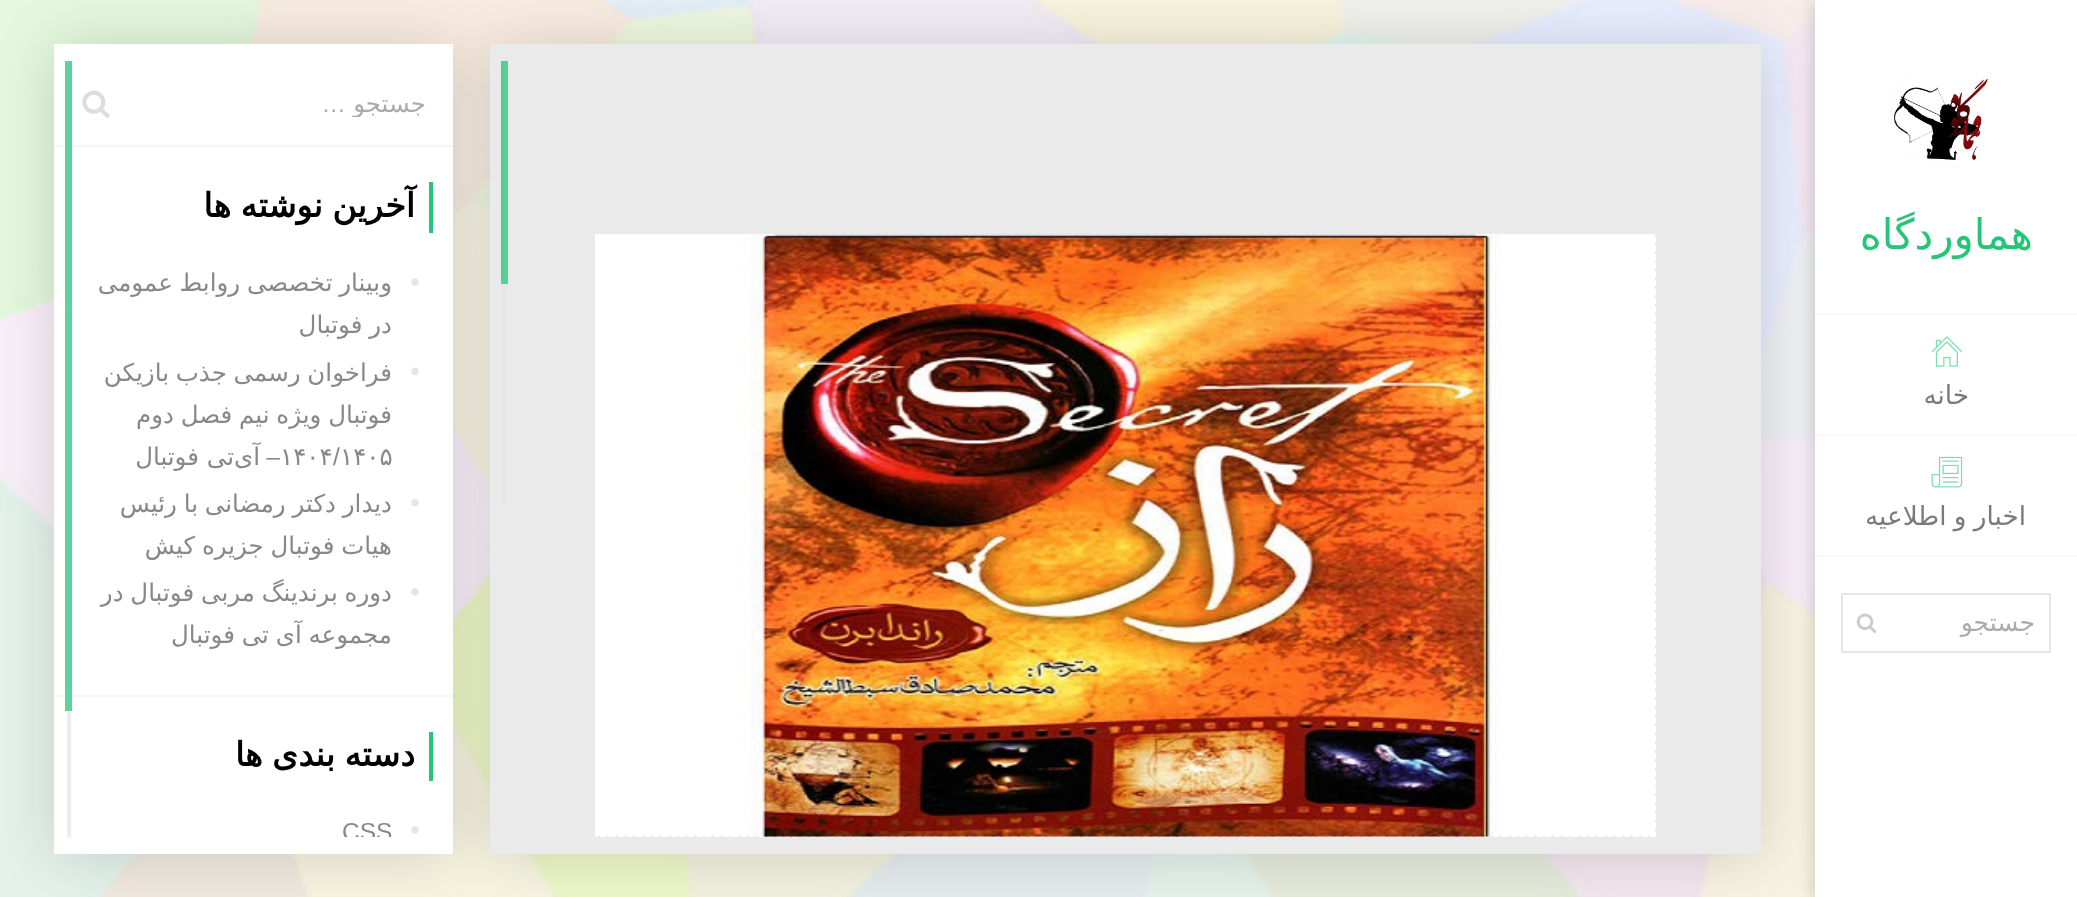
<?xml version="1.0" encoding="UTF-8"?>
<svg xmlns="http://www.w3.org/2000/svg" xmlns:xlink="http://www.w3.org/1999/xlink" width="2077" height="897">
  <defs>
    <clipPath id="clip1"><rect x="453" y="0" width="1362" height="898" /></clipPath>
    <clipPath id="clip2"><rect x="149" y="89" width="276" height="28" /></clipPath>
    <clipPath id="clip3"><rect x="54" y="61" width="399" height="776" /></clipPath>
  </defs>
  <rect width="100%" height="100%" fill="#ffffff" />
  <image x="0" y="0" width="1815" height="897" xlink:href="image1.png" />
  <rect x="1815" y="2" width="262" height="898" fill="#000000" fill-opacity="0.2" filter="blur(9px)" />
  <rect x="54" y="46" width="399" height="810" fill="#000000" fill-opacity="0.15" filter="blur(29px)" />
  <rect x="54" y="44" width="399" height="810" fill="#ffffff" />
  <rect x="54" y="145" width="399" height="2" fill="#f5f5f5" />
  <rect x="54" y="695" width="399" height="2" fill="#f5f5f5" />
  <rect x="429" y="182" width="4" height="51" fill="#25c577" />
  <image x="411" y="278" width="8" height="8" xlink:href="image9.png" />
  <image x="411" y="367" width="8" height="8" xlink:href="image10.png" />
  <image x="411" y="499" width="8" height="8" xlink:href="image11.png" />
  <image x="411" y="588" width="8" height="8" xlink:href="image12.png" />
  <rect x="429" y="732" width="4" height="49" fill="#25c577" />
  <image x="411" y="826" width="8" height="8" xlink:href="image12.png" />
  <g clip-path="url(#clip1)">
    <rect x="490" y="46" width="1271" height="810" fill="#000000" fill-opacity="0.15" filter="blur(29px)" />
  </g>
  <rect x="1815" width="262" height="897" fill="#ffffff" />
  <image x="1890" y="75" width="98" height="94" xlink:href="image2.png" />
  <rect x="1815" y="313" width="262" height="2" fill="#f9f9f9" />
  <rect x="1815" y="434" width="262" height="2" fill="#f9f9f9" />
  <image x="1931" y="336" width="32" height="31" xlink:href="image3.png" />
  <rect x="1815" y="555" width="262" height="2" fill="#f9f9f9" />
  <image x="1931" y="456" width="32" height="32" xlink:href="image4.png" />
  <rect x="1842" y="594" width="208" height="58" fill="none" stroke="#e5e5e5" stroke-width="2" />
  <image x="1856" y="613" width="21" height="20" xlink:href="image5.png" />
  <rect x="490" y="44" width="1271" height="810" fill="#eaeaea" />
  <rect x="597" y="235" width="1059" height="602" fill="#b2b2b2" />
  <image x="595" y="234" width="1061" height="603" xlink:href="image6.png" />
  <image x="595" y="234" width="1061" height="603" xlink:href="image7.png" />
  <rect x="501" y="61" width="7" height="223" fill="#56ce94" />
  <rect x="502" y="284" width="4" height="222" rx="2" fill="#e6e6e6" />
  <image x="82" y="90" width="28" height="28" xlink:href="image8.png" />
  <rect x="65" y="61" width="7" height="650" fill="#25c577" fill-opacity="0.75" />
  <path d="M 69 711 c 1 0 2 1 2 2 v 124 h -4 v -124 c 0 -1 1 -2 2 -2 z" fill="#ececec" />
  <text x="2033" y="249" style="font-family: DejaVu Sans; font-size: 42px; direction: rtl; fill: #25c577">هماوردگاه</text>
  <text x="1969" y="404" style="font-family: DejaVu Sans; font-size: 26.25px; direction: rtl; fill: #7a7a7a">خانه</text>
  <text x="2026" y="525" word-spacing="-1" style="font-family: DejaVu Sans; font-size: 26.25px; direction: rtl; fill: #7a7a7a">اخبار و اطلاعیه</text>
  <text x="2035" y="631" style="font-family: DejaVu Sans; font-size: 25px; direction: rtl; fill: #aaaaaa">جستجو</text>
  <g clip-path="url(#clip2)">
    <text x="426" y="112" style="font-family: DejaVu Sans; font-size: 24.5px; direction: rtl; fill: #aaaaaa">جستجو</text>
  </g>
  <text x="346" y="112" style="font-family: Liberation Sans; font-size: 24.5px; direction: rtl; fill: #aaaaaa">…</text>
  <text x="415" y="217" word-spacing="-1" style="font-family: DejaVu Sans; font-size: 33.25px; font-weight: bold; direction: rtl; fill: #000000">آخرین نوشته ها</text>
  <text x="392" y="291" word-spacing="-1" style="font-family: DejaVu Sans; font-size: 24.5px; direction: rtl; fill: #888888">وبینار تخصصی روابط عمومی</text>
  <text x="392" y="333" word-spacing="-1" style="font-family: DejaVu Sans; font-size: 24.5px; direction: rtl; fill: #888888">در فوتبال</text>
  <text x="392" y="381" word-spacing="-1" style="font-family: DejaVu Sans; font-size: 24.5px; direction: rtl; fill: #888888">فراخوان رسمی جذب بازیکن</text>
  <text x="392" y="423" word-spacing="-1" style="font-family: DejaVu Sans; font-size: 24.5px; direction: rtl; fill: #888888">فوتبال ویژه نیم فصل دوم</text>
  <text x="340" y="465" style="font-family: DejaVu Sans; font-size: 24.5px; fill: #888888">۱۴۰۵</text>
  <text x="333" y="465" style="font-family: Liberation Sans; font-size: 24.5px; fill: #888888">/</text>
  <text x="280" y="465" style="font-family: DejaVu Sans; font-size: 24.5px; fill: #888888">۱۴۰۴</text>
  <text x="280" y="465" style="font-family: Liberation Sans; font-size: 24.5px; direction: rtl; fill: #888888">–</text>
  <text x="260" y="465" style="font-family: DejaVu Sans; font-size: 24.5px; direction: rtl; fill: #888888">آی</text>
  <text x="234" y="465" style="font-family: DejaVu Sans; font-size: 24.5px; direction: rtl; fill: #888888">تی فوتبال</text>
  <text x="392" y="512" word-spacing="-1" style="font-family: DejaVu Sans; font-size: 24.5px; direction: rtl; fill: #888888">دیدار دکتر رمضانی با رئیس</text>
  <text x="392" y="554" word-spacing="-1" style="font-family: DejaVu Sans; font-size: 24.5px; direction: rtl; fill: #888888">هیات فوتبال جزیره کیش</text>
  <text x="392" y="601" word-spacing="-1" style="font-family: DejaVu Sans; font-size: 24.5px; direction: rtl; fill: #888888">دوره برندینگ مربی فوتبال در</text>
  <text x="392" y="643" word-spacing="-1" style="font-family: DejaVu Sans; font-size: 24.5px; direction: rtl; fill: #888888">مجموعه آی تی فوتبال</text>
  <text x="415" y="766" word-spacing="-1" style="font-family: DejaVu Sans; font-size: 33.25px; font-weight: bold; direction: rtl; fill: #000000">دسته بندی ها</text>
  <g clip-path="url(#clip3)">
    <text x="342" y="840" style="font-family: Liberation Sans; font-size: 24.5px; fill: #888888">CSS</text>
  </g>
</svg>
